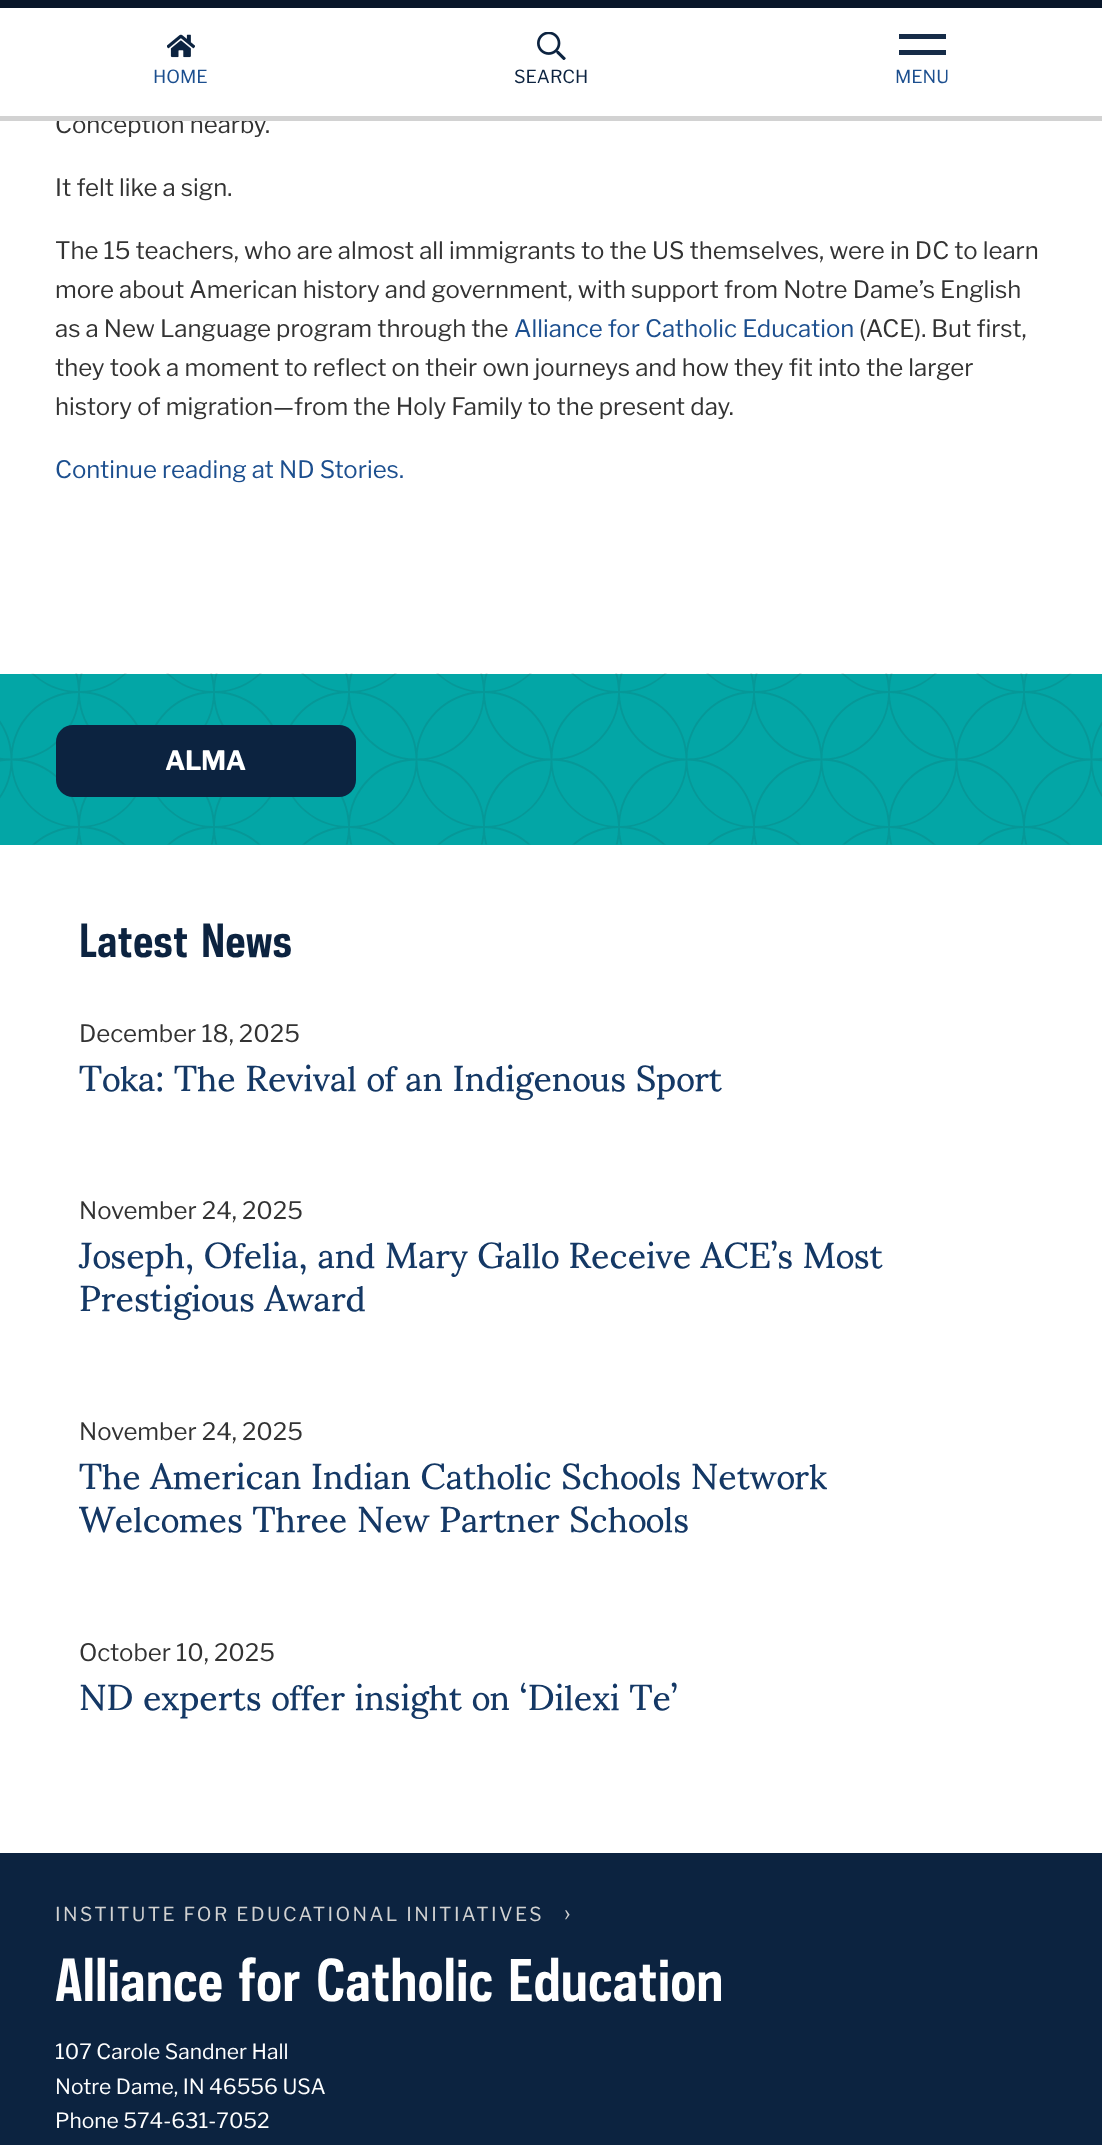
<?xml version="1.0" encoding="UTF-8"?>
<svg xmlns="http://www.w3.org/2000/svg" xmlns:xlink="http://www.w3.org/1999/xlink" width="1102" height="2145">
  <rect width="100%" height="100%" fill="#ffffff" />
  <rect width="1102" height="8" fill="#081629" />
  <image x="167" y="34" width="28" height="24" xlink:href="image1.png" />
  <image x="537" y="32" width="29" height="28" xlink:href="image2.png" />
  <rect x="899" y="34" width="47" height="5" fill="#162c48" />
  <rect x="899" y="50" width="47" height="5" fill="#162c48" />
  <image x="75" y="673" width="953" height="1" xlink:href="image3.png" />
  <rect y="674" width="1102" height="171" fill="#03a6a6" />
  <image x="0" y="673" width="1102" height="172" xlink:href="image4.png" />
  <rect x="56" y="725" width="300" height="72" rx="17" fill="#0c2340" />
  <rect y="1853" width="1102" height="292" fill="#0c2340" />
  <text x="153" y="83" style="font-family: Libre Franklin; font-size: 18px; fill: #1c4f8f">HOME</text>
  <text x="514" y="83" style="font-family: Libre Franklin; font-size: 18px; fill: #0c2340">SEARCH</text>
  <text x="895" y="83" style="font-family: Libre Franklin; font-size: 18px; fill: #1c4f8f">MENU</text>
  <text x="55" y="133" style="font-family: Libre Franklin; font-size: 24px; fill: #333333">Conception nearby.</text>
  <rect y="116" width="1102" height="5" fill="#d2d2d2" />
  <rect x="60" y="114" width="184" height="2" fill="#ffffff" />
  <text x="55" y="196" style="font-family: Libre Franklin; font-size: 24px; fill: #333333">It felt like a sign.</text>
  <text x="55" y="259" style="font-family: Libre Franklin; font-size: 24px; fill: #333333">The 15 teachers, who are almost all immigrants to the US themselves, were in DC to learn</text>
  <text x="55" y="298" style="font-family: Libre Franklin; font-size: 24px; fill: #333333">more about American history and government, with support from Notre Dame’s English</text>
  <text x="55" y="337" style="font-family: Libre Franklin; font-size: 24px; fill: #333333">as a New Language program through the</text>
  <text x="514" y="337" style="font-family: Libre Franklin; font-size: 24px; fill: #1c4f8f">Alliance for Catholic Education</text>
  <text x="859" y="337" style="font-family: Libre Franklin; font-size: 24px; fill: #333333">(ACE). But first,</text>
  <text x="55" y="376" style="font-family: Libre Franklin; font-size: 24px; fill: #333333">they took a moment to reflect on their own journeys and how they fit into the larger</text>
  <text x="55" y="415" style="font-family: Libre Franklin; font-size: 24px; fill: #333333">history of migration—from the Holy Family to the present day.</text>
  <text x="55" y="478" style="font-family: Libre Franklin; font-size: 24px; fill: #1c4f8f">Continue reading at ND Stories.</text>
  <text x="165" y="770" style="font-family: Libre Franklin; font-size: 26.5px; font-weight: bold; letter-spacing: -0.5px; fill: #ffffff">ALMA</text>
  <text x="79" y="957" style="font-family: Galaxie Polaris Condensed; font-size: 43px; font-weight: bold; fill: #0c2340">Latest</text>
  <text x="201" y="957" style="font-family: Galaxie Polaris Condensed; font-size: 43px; font-weight: bold; fill: #0c2340">News</text>
  <text x="79" y="1042" style="font-family: Libre Franklin; font-size: 24px; fill: #333333">December 18, 2025</text>
  <text x="79" y="1091" style="font-family: Sumana; font-size: 36px; fill: #143865">Toka: The Revival of an Indigenous Sport</text>
  <text x="79" y="1219" style="font-family: Libre Franklin; font-size: 24px; fill: #333333">November 24, 2025</text>
  <text x="79" y="1268" style="font-family: Sumana; font-size: 36px; fill: #143865">Joseph, Ofelia, and Mary Gallo Receive ACE’s Most</text>
  <text x="79" y="1311" style="font-family: Sumana; font-size: 36px; fill: #143865">Prestigious Award</text>
  <text x="79" y="1440" style="font-family: Libre Franklin; font-size: 24px; fill: #333333">November 24, 2025</text>
  <text x="79" y="1489" style="font-family: Sumana; font-size: 36px; fill: #143865">The American Indian Catholic Schools Network</text>
  <text x="79" y="1532" style="font-family: Sumana; font-size: 36px; fill: #143865">Welcomes Three New Partner Schools</text>
  <text x="79" y="1661" style="font-family: Libre Franklin; font-size: 24px; fill: #333333">October 10, 2025</text>
  <text x="79" y="1710" style="font-family: Sumana; font-size: 36px; fill: #143865">ND experts offer insight on ‘Dilexi Te’</text>
  <text x="55" y="1921" style="font-family: Libre Franklin; font-size: 19.2px; letter-spacing: 2.4px; fill: #d2d2d2">INSTITUTE FOR EDUCATIONAL INITIATIVES</text>
  <text x="564" y="1921" style="font-family: Libre Franklin; font-size: 24px; letter-spacing: 2.4px; fill: #d2d2d2">›</text>
  <text x="55" y="2001" style="font-family: Galaxie Polaris Condensed; font-size: 54px; font-weight: bold; fill: #ffffff">Alliance</text>
  <text x="238" y="2001" style="font-family: Galaxie Polaris Condensed; font-size: 54px; font-weight: bold; fill: #ffffff">for</text>
  <text x="316" y="2001" style="font-family: Galaxie Polaris Condensed; font-size: 54px; font-weight: bold; fill: #ffffff">Catholic</text>
  <text x="508" y="2001" style="font-family: Galaxie Polaris Condensed; font-size: 54px; font-weight: bold; fill: #ffffff">Education</text>
  <text x="55" y="2059" style="font-family: Libre Franklin; font-size: 21px; fill: #ffffff">107 Carole Sandner Hall</text>
  <text x="55" y="2094" style="font-family: Libre Franklin; font-size: 21px; fill: #ffffff">Notre Dame, IN 46556 USA</text>
  <text x="55" y="2128" style="font-family: Libre Franklin; font-size: 21px; fill: #ffffff">Phone 574-631-7052</text>
</svg>
